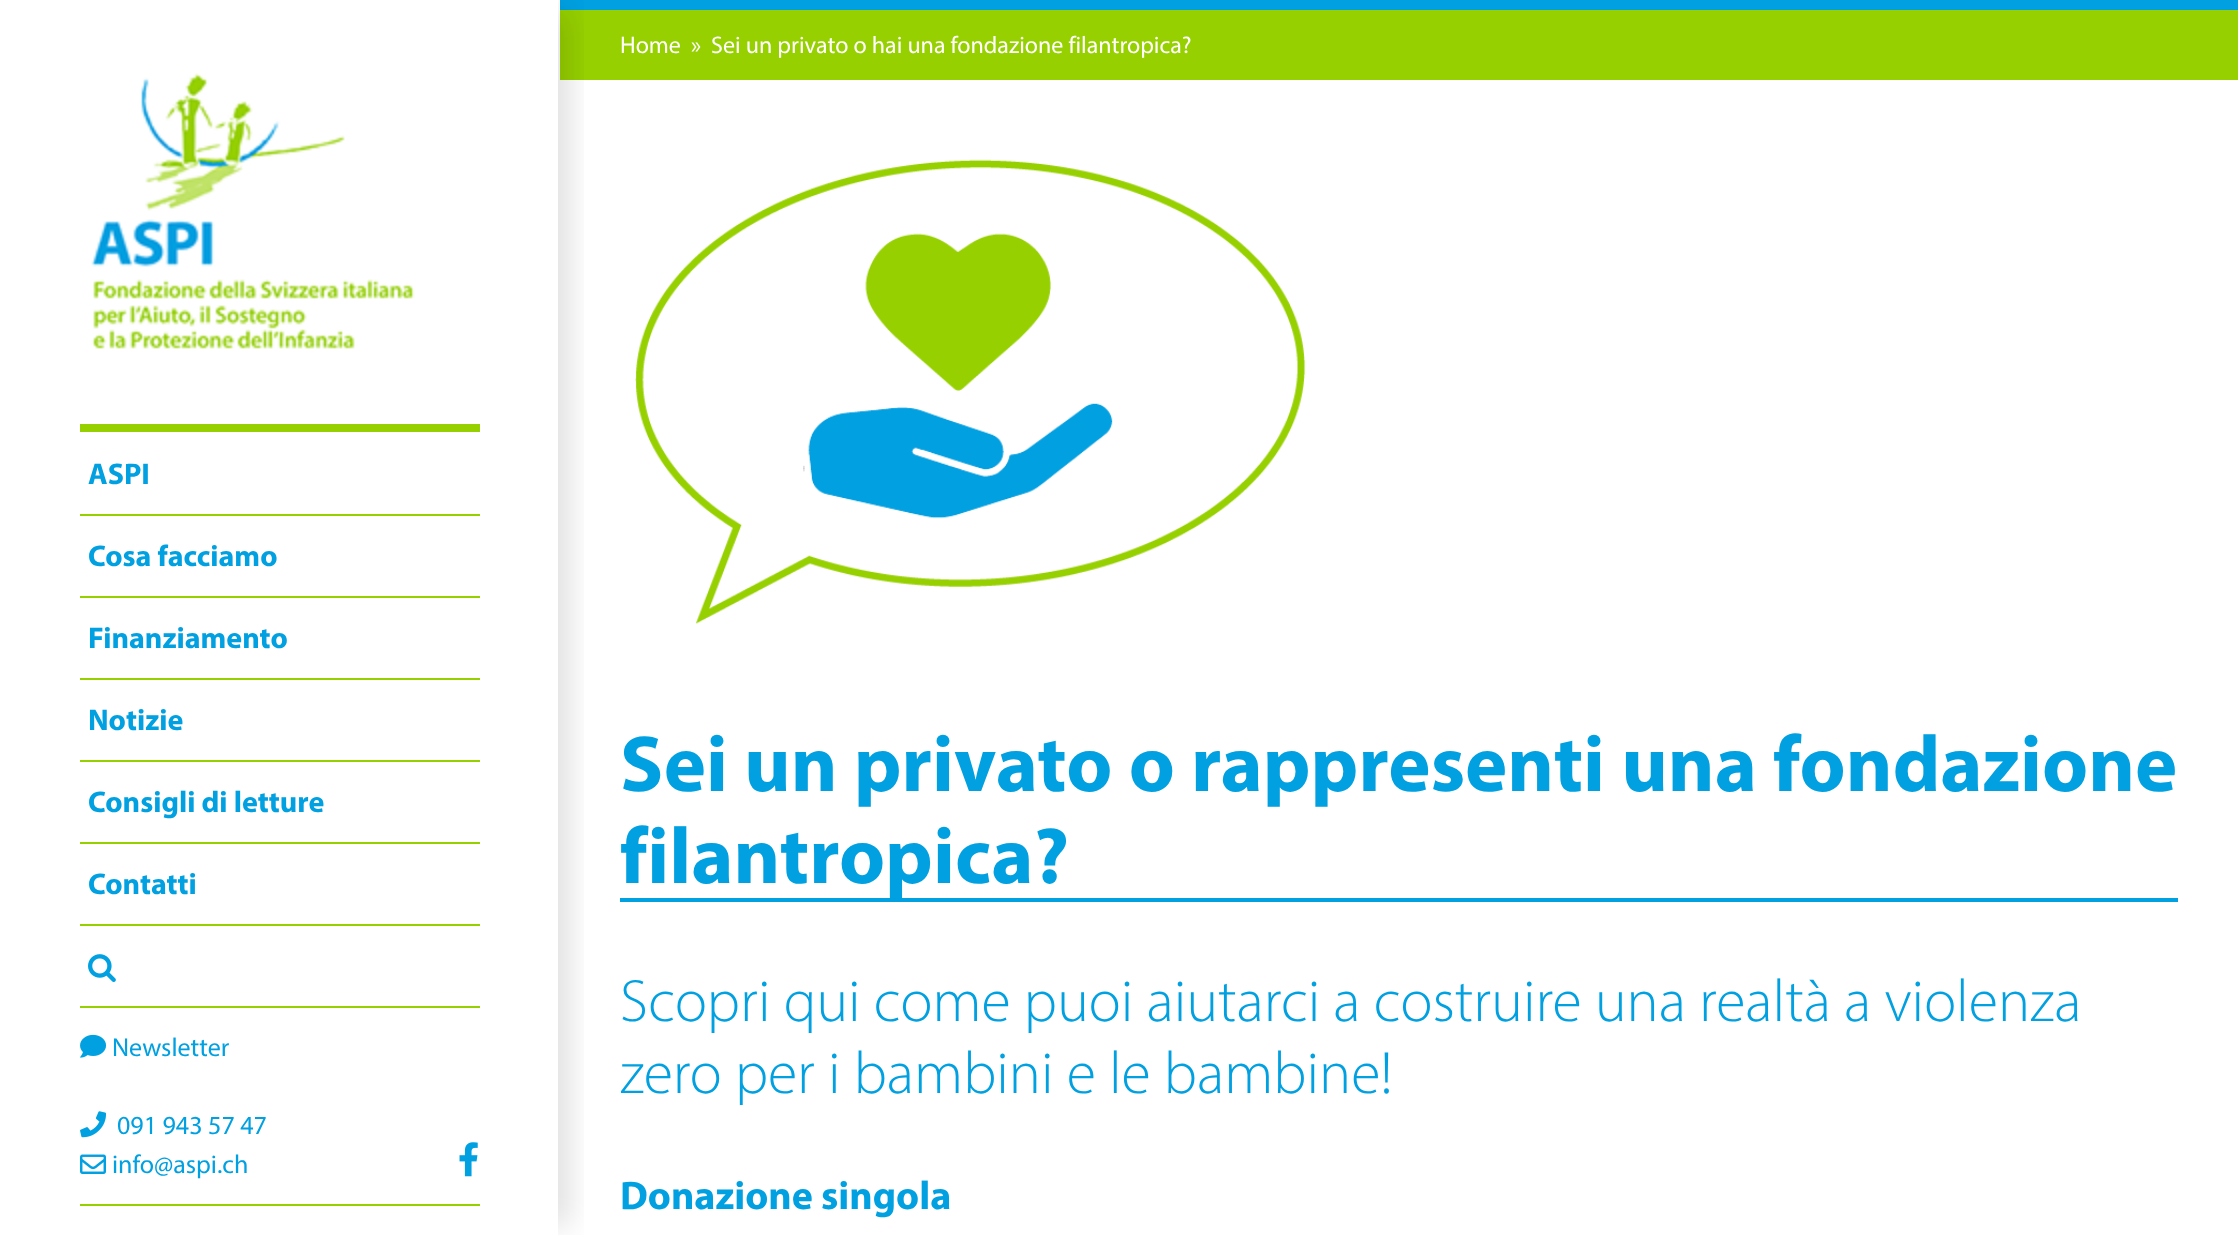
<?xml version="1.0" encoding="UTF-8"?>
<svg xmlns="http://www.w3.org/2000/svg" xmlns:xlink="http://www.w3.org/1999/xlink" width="2238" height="1235">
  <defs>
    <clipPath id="clip1"><rect x="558" y="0" width="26" height="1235" /></clipPath>
  </defs>
  <rect width="100%" height="100%" fill="#ffffff" />
  <rect x="560" y="10" width="1678" height="70" fill="#96d000" />
  <rect x="560" width="1678" height="10" fill="#00a0e1" />
  <image x="91" y="73" width="324" height="276" xlink:href="image1.png" />
  <rect x="80" y="424" width="400" height="8" fill="#96d000" />
  <rect x="80" y="514" width="400" height="2" fill="#96d000" />
  <rect x="80" y="596" width="400" height="2" fill="#96d000" />
  <rect x="80" y="678" width="400" height="2" fill="#96d000" />
  <rect x="80" y="760" width="400" height="2" fill="#96d000" />
  <rect x="80" y="842" width="400" height="2" fill="#96d000" />
  <rect x="80" y="924" width="400" height="2" fill="#96d000" />
  <rect x="80" y="1006" width="400" height="2" fill="#96d000" />
  <image x="88" y="954" width="28" height="28" xlink:href="image2.png" />
  <rect x="80" y="1204" width="400" height="2" fill="#96d000" />
  <image x="80" y="1034" width="27" height="24" xlink:href="image3.png" />
  <image x="80" y="1111" width="26" height="27" xlink:href="image4.png" />
  <image x="80" y="1154" width="26" height="20" xlink:href="image5.png" />
  <image x="459" y="1142" width="19" height="35" xlink:href="image6.png" />
  <g clip-path="url(#clip1)">
    <rect x="538" y="10" width="30" height="1216" fill="#000000" fill-opacity="0.14" filter="blur(15px)" />
  </g>
  <image x="635" y="159" width="671" height="465" xlink:href="image7.png" />
  <rect x="620" y="898" width="1558" height="4" fill="#00a0e1" />
  <text x="620" y="53" style="font-family: Myriad; font-size: 24px; fill: #ffffff">Home</text>
  <text x="691" y="53" style="font-family: Myriad; font-size: 24px; fill: #ffffff">»</text>
  <text x="711" y="53" style="font-family: Myriad; font-size: 24px; fill: #ffffff">Sei un privato o hai una fondazione filantropica?</text>
  <text x="88" y="484" style="font-family: Myriad; font-size: 30px; font-weight: bold; fill: #00a0e1">ASPI</text>
  <text x="88" y="566" style="font-family: Myriad; font-size: 30px; font-weight: bold; fill: #00a0e1">Cosa facciamo</text>
  <text x="88" y="648" style="font-family: Myriad; font-size: 30px; font-weight: bold; fill: #00a0e1">Finanziamento</text>
  <text x="88" y="730" style="font-family: Myriad; font-size: 30px; font-weight: bold; fill: #00a0e1">Notizie</text>
  <text x="88" y="812" style="font-family: Myriad; font-size: 30px; font-weight: bold; fill: #00a0e1">Consigli di letture</text>
  <text x="88" y="894" style="font-family: Myriad; font-size: 30px; font-weight: bold; fill: #00a0e1">Contatti</text>
  <text x="112" y="1056" style="font-family: Myriad; font-size: 26px; fill: #00a0e1">Newsletter</text>
  <text x="117" y="1134" style="font-family: Myriad; font-size: 26px; fill: #00a0e1">091 943 57 47</text>
  <text x="112" y="1173" style="font-family: Myriad; font-size: 26px; fill: #00a0e1">info@aspi.ch</text>
  <text x="620" y="791" style="font-family: Myriad; font-size: 80px; font-weight: bold; fill: #00a0e1">Sei un privato o rappresenti una fondazione</text>
  <text x="620" y="883" style="font-family: Myriad; font-size: 80px; font-weight: bold; fill: #00a0e1">filantropica?</text>
  <text x="620" y="1021" style="font-family: Myriad; font-size: 60px; font-weight: 300; fill: #00a0e1">Scopri qui come puoi aiutarci a costruire una realtà a violenza</text>
  <text x="620" y="1093" style="font-family: Myriad; font-size: 60px; font-weight: 300; fill: #00a0e1">zero per i bambini e le bambine!</text>
  <text x="620" y="1209" style="font-family: Myriad; font-size: 40px; font-weight: bold; fill: #00a0e1">Donazione singola</text>
</svg>
